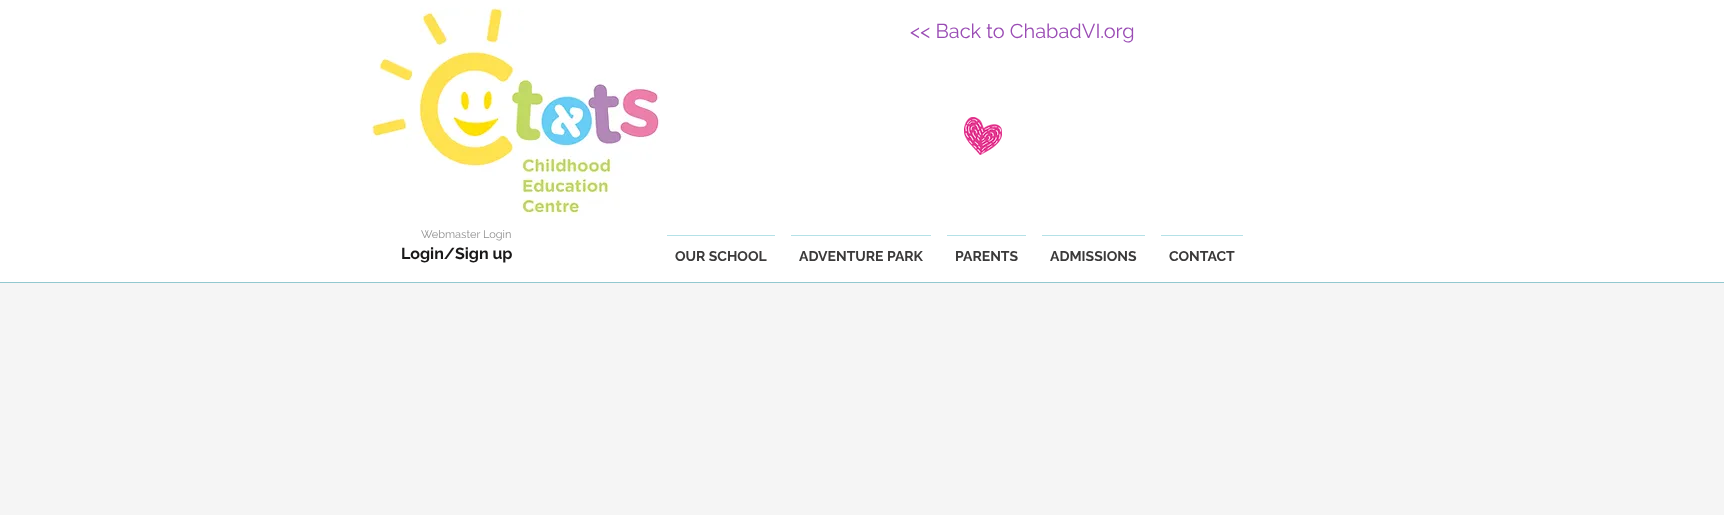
<?xml version="1.0" encoding="UTF-8"?>
<svg xmlns="http://www.w3.org/2000/svg" xmlns:xlink="http://www.w3.org/1999/xlink" width="1724" height="515">
  <rect width="100%" height="100%" fill="#f5f5f5" />
  <rect width="1724" height="282" fill="#ffffff" />
  <rect y="282" width="1724" height="1" fill="#92c8cf" />
  <image x="371" y="7" width="289" height="209" xlink:href="image1.png" />
  <image x="964" y="117" width="38" height="38" xlink:href="image2.png" />
  <rect x="667" y="235" width="108" height="1" fill="#b4e1e7" />
  <rect x="791" y="235" width="140" height="1" fill="#b4e1e7" />
  <rect x="947" y="235" width="79" height="1" fill="#b4e1e7" />
  <rect x="1042" y="235" width="103" height="1" fill="#b4e1e7" />
  <rect x="1161" y="235" width="82" height="1" fill="#b4e1e7" />
  <text x="910" y="38" style="font-family: Raleway; font-size: 20px; fill: #9a4cb4">&lt;&lt; Back to ChabadVI.org</text>
  <text x="421" y="238" style="font-family: Raleway; font-size: 11px; fill: #909090">Webmaster Login</text>
  <text x="401" y="259" style="font-family: Raleway; font-size: 16px; font-weight: bold; fill: #191818">Login/Sign up</text>
  <text x="675" y="261" style="font-family: Raleway; font-size: 14px; font-weight: bold; fill: #3b3a3a">OUR SCHOOL</text>
  <text x="799" y="261" style="font-family: Raleway; font-size: 14px; font-weight: bold; fill: #3b3a3a">ADVENTURE PARK</text>
  <text x="955" y="261" style="font-family: Raleway; font-size: 14px; font-weight: bold; fill: #3b3a3a">PARENTS</text>
  <text x="1050" y="261" style="font-family: Raleway; font-size: 14px; font-weight: bold; fill: #3b3a3a">ADMISSIONS</text>
  <text x="1169" y="261" style="font-family: Raleway; font-size: 14px; font-weight: bold; fill: #3b3a3a">CONTACT</text>
</svg>
